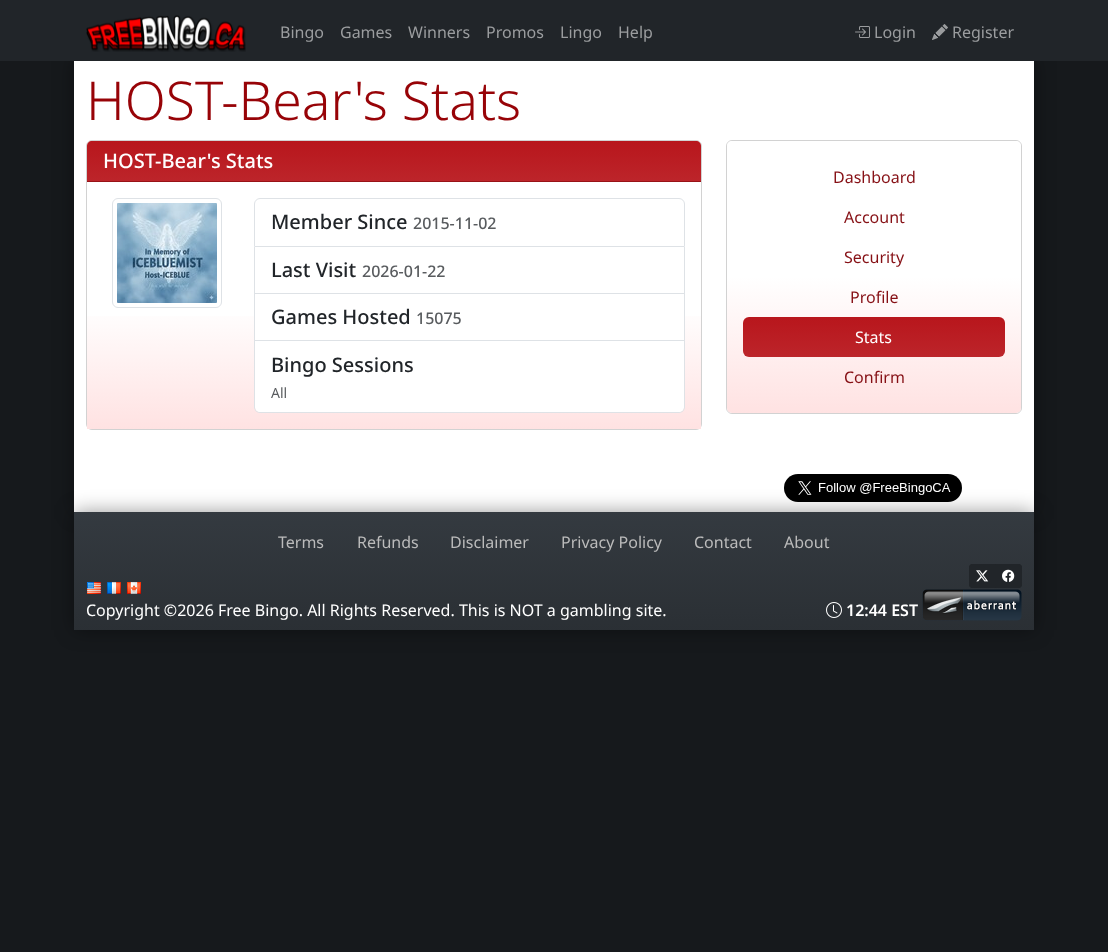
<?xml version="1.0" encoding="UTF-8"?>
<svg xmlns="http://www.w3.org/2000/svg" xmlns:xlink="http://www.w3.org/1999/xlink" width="1108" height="952">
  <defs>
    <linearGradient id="g1" gradientUnits="userSpaceOnUse" x1="394" y1="141" x2="394" y2="781"><stop offset="0" stop-color="#b8161c" /><stop offset="1" stop-color="#ffffff" /></linearGradient>
    <linearGradient id="g2" gradientUnits="userSpaceOnUse" x1="394" y1="182" x2="394" y2="429"><stop offset="0.5" stop-color="#ffffff" /><stop offset="1" stop-color="#ffe2e2" /></linearGradient>
    <linearGradient id="g3" gradientUnits="userSpaceOnUse" x1="874" y1="141" x2="874" y2="413"><stop offset="0.5" stop-color="#ffffff" /><stop offset="1" stop-color="#ffe2e2" /></linearGradient>
    <linearGradient id="g4" gradientUnits="userSpaceOnUse" x1="874" y1="317" x2="874" y2="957"><stop offset="0" stop-color="#b8161c" /><stop offset="1" stop-color="#ffffff" /></linearGradient>
    <linearGradient id="g5" gradientUnits="userSpaceOnUse" x1="554" y1="512" x2="554" y2="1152"><stop offset="0" stop-color="#343a40" /><stop offset="1" stop-color="#000000" /></linearGradient>
  </defs>
  <rect width="100%" height="100%" fill="#16191c" />
  <rect x="74" y="58" width="960" height="454" fill="#000000" fill-opacity="0.4" filter="blur(10px)" />
  <rect width="1108" height="61" fill="#212529" />
  <image x="86" y="15" width="160" height="37" xlink:href="image1.png" />
  <image x="855" y="26" width="15" height="12" xlink:href="image2.png" />
  <image x="932" y="24" width="16" height="16" xlink:href="image3.png" />
  <rect x="74" y="61" width="960" height="451" fill="#ffffff" />
  <rect x="86.5" y="140.5" width="615" height="289" rx="5.5" fill="none" stroke="#d2d2d2" />
  <path d="M 92 141 h 604 c 3 0 5 2 5 5 v 35 h -614 v -35 c 0 -3 2 -5 5 -5 z" fill="url(#g1)" />
  <rect x="87" y="181" width="614" height="1" fill="#981217" />
  <rect x="87" y="316" width="614" height="113" fill="url(#g2)" />
  <rect x="112.5" y="198.5" width="109" height="109" rx="5.5" fill="none" stroke="#dee2e6" />
  <image x="117" y="203" width="100" height="100" xlink:href="image4.png" />
  <path d="M 260 198.5 h 419 c 3 0 5.5 2.5 5.5 5.5 v 42.5 h -430 v -42.5 c 0 -3 2.5 -5.5 5.5 -5.5 z" fill="none" stroke="#dee2e6" />
  <rect x="684" y="247" width="1" height="94" fill="#dee2e6" />
  <rect x="254" y="293" width="431" height="1" fill="#dee2e6" />
  <rect x="254" y="247" width="1" height="47" fill="#dee2e6" />
  <rect x="255" y="316" width="429" height="24" fill="#ffffff" />
  <rect x="254" y="340" width="431" height="1" fill="#dee2e6" />
  <rect x="254" y="294" width="1" height="47" fill="#dee2e6" />
  <path d="M 255 341 h 429 v 66 c 0 3 -2 5 -5 5 h -419 c -3 0 -5 -2 -5 -5 z" fill="#ffffff" />
  <path d="M 254 341 h 431 v 66 c 0 3 -3 6 -6 6 h -419 c -3 0 -6 -3 -6 -6 z m 1 0 h 429 v 66 c 0 3 -2 5 -5 5 h -419 c -3 0 -5 -2 -5 -5 z" fill="#dee2e6" fill-rule="evenodd" />
  <rect x="726.5" y="140.5" width="295" height="273" rx="5.5" fill="none" stroke="#d2d2d2" />
  <rect x="727" y="141" width="294" height="272" rx="5" fill="url(#g3)" />
  <rect x="743" y="317" width="262" height="40" rx="6" fill="url(#g4)" />
  <rect x="74" y="512" width="960" height="118" fill="#000000" fill-opacity="0.4" filter="blur(10px)" />
  <image x="784" y="474" width="178" height="28" xlink:href="image5.png" />
  <rect x="74" y="512" width="960" height="118" fill="url(#g5)" />
  <image x="87" y="582" width="14" height="12" xlink:href="image6.png" />
  <image x="107" y="582" width="14" height="12" xlink:href="image7.png" />
  <image x="127" y="582" width="14" height="12" xlink:href="image8.png" />
  <path d="M 972 564.5 h 23.5 v 23 h -23.5 c -1.5 0 -2.5 -1 -2.5 -2.5 v -18 c 0 -1.5 1 -2.5 2.5 -2.5 z" fill="#212529" stroke="#212529" />
  <image x="976" y="570" width="13" height="12" xlink:href="image9.png" />
  <path d="M 995.5 564.5 h 23.5 c 1.5 0 2.5 1 2.5 2.5 v 18 c 0 1.5 -1 2.5 -2.5 2.5 h -23.5 z" fill="#212529" stroke="#212529" />
  <image x="1002" y="569" width="13" height="13" xlink:href="image10.png" />
  <image x="826" y="602" width="16" height="16" xlink:href="image11.png" />
  <image x="922" y="589" width="100" height="32" xlink:href="image12.png" />
  <text x="280" y="38" style="font-family: Noto Sans; font-size: 16px; fill: #9b9d9f">Bingo</text>
  <text x="340" y="38" style="font-family: Noto Sans; font-size: 16px; fill: #9b9d9f">Games</text>
  <text x="408" y="38" style="font-family: Noto Sans; font-size: 16px; fill: #9b9d9f">Winners</text>
  <text x="486" y="38" style="font-family: Noto Sans; font-size: 16px; fill: #9b9d9f">Promos</text>
  <text x="560" y="38" style="font-family: Noto Sans; font-size: 16px; fill: #9b9d9f">Lingo</text>
  <text x="618" y="38" style="font-family: Noto Sans; font-size: 16px; fill: #9b9d9f">Help</text>
  <text x="874" y="38" style="font-family: Noto Sans; font-size: 16px; fill: #9b9d9f">Login</text>
  <text x="952" y="38" style="font-family: Noto Sans; font-size: 16px; fill: #9b9d9f">Register</text>
  <text x="86" y="120" style="font-family: Noto Sans; font-size: 53.5px; font-weight: 300; fill: #970307">HOST-Bear's Stats</text>
  <text x="103" y="168" style="font-family: Noto Sans; font-size: 20px; font-weight: 500; fill: #ffffff">HOST-Bear's Stats</text>
  <text x="271" y="229" style="font-family: Noto Sans; font-size: 20px; font-weight: 500; fill: #212529">Member Since</text>
  <text x="413" y="229" style="font-family: Noto Sans; font-size: 16px; font-weight: 500; fill: #595c5f">2015-11-02</text>
  <text x="271" y="277" style="font-family: Noto Sans; font-size: 20px; font-weight: 500; fill: #212529">Last Visit</text>
  <text x="362" y="277" style="font-family: Noto Sans; font-size: 16px; font-weight: 500; fill: #595c5f">2026-01-22</text>
  <text x="271" y="324" style="font-family: Noto Sans; font-size: 20px; font-weight: 500; fill: #212529">Games Hosted</text>
  <text x="416" y="324" style="font-family: Noto Sans; font-size: 16px; font-weight: 500; fill: #595c5f">15075</text>
  <text x="271" y="372" style="font-family: Noto Sans; font-size: 20px; font-weight: 500; fill: #212529">Bingo Sessions</text>
  <text x="271" y="398" style="font-family: Noto Sans; font-size: 14px; fill: #595c5f">All</text>
  <text x="833" y="183" style="font-family: Noto Sans; font-size: 16px; fill: #861015">Dashboard</text>
  <text x="844" y="223" style="font-family: Noto Sans; font-size: 16px; fill: #861015">Account</text>
  <text x="844" y="263" style="font-family: Noto Sans; font-size: 16px; fill: #861015">Security</text>
  <text x="850" y="303" style="font-family: Noto Sans; font-size: 16px; fill: #861015">Profile</text>
  <text x="855" y="343" style="font-family: Noto Sans; font-size: 16px; fill: #ffffff">Stats</text>
  <text x="844" y="383" style="font-family: Noto Sans; font-size: 16px; fill: #861015">Confirm</text>
  <text x="278" y="548" style="font-family: Noto Sans; font-size: 16px; fill: #bbbbbb">Terms</text>
  <text x="357" y="548" style="font-family: Noto Sans; font-size: 16px; fill: #bbbbbb">Refunds</text>
  <text x="450" y="548" style="font-family: Noto Sans; font-size: 16px; fill: #bbbbbb">Disclaimer</text>
  <text x="561" y="548" style="font-family: Noto Sans; font-size: 16px; fill: #bbbbbb">Privacy Policy</text>
  <text x="694" y="548" style="font-family: Noto Sans; font-size: 16px; fill: #bbbbbb">Contact</text>
  <text x="784" y="548" style="font-family: Noto Sans; font-size: 16px; fill: #bbbbbb">About</text>
  <text x="86" y="616" style="font-family: Noto Sans; font-size: 16px; fill: #ffffff">Copyright ©2026 Free Bingo. All Rights Reserved. This is NOT a gambling site.</text>
  <text x="846" y="616" style="font-family: Noto Sans; font-size: 16px; font-weight: 600; fill: #ffffff">12:44 EST</text>
</svg>
